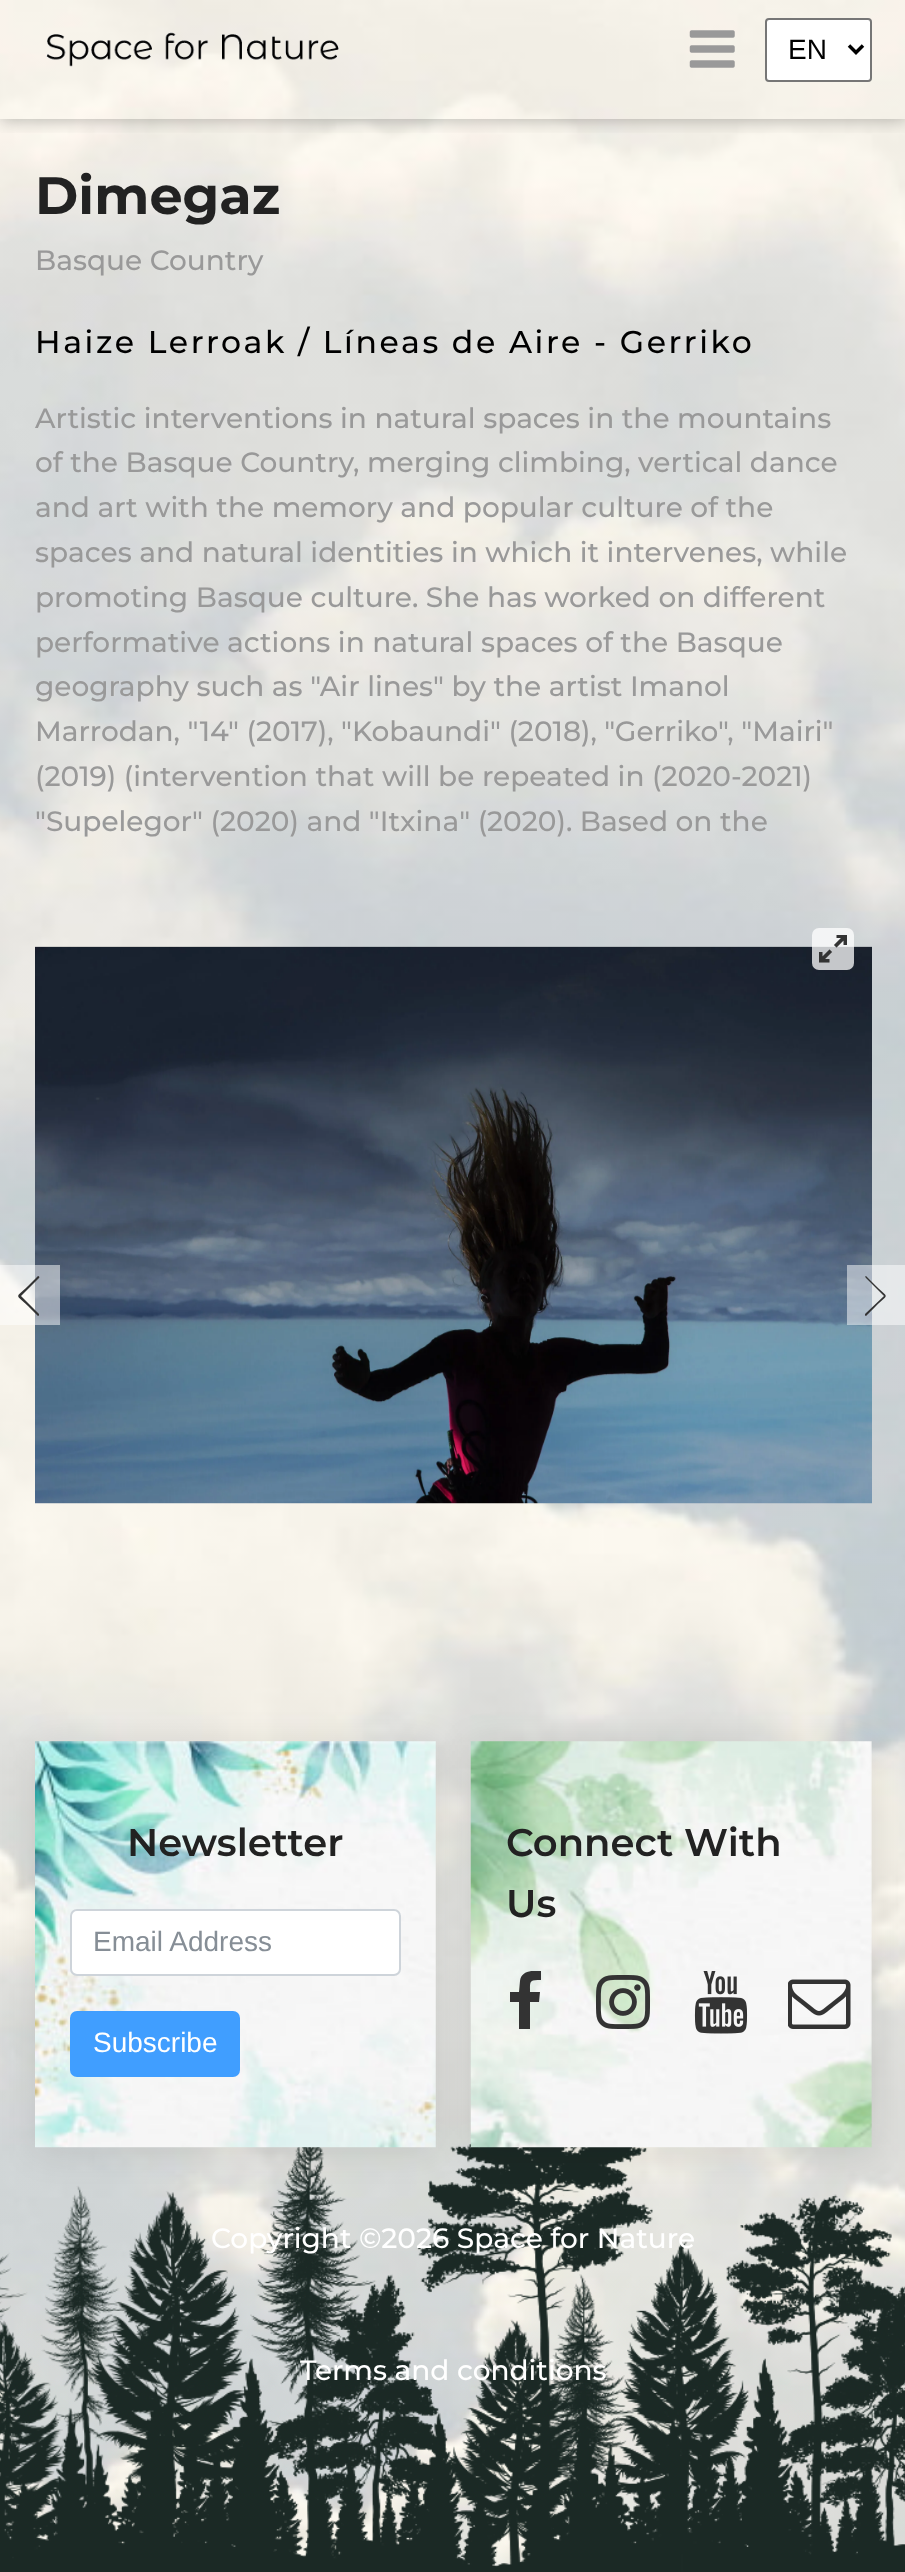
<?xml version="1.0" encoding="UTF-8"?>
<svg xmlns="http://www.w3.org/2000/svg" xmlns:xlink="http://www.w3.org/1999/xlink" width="905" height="2572">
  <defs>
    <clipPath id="clip1"><rect x="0" y="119" width="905" height="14" /></clipPath>
    <clipPath id="clip2"><rect x="494" y="1971" width="63" height="63" /></clipPath>
  </defs>
  <rect width="100%" height="100%" fill="#ffffff" />
  <image x="0" y="0" width="905" height="2568" xlink:href="image1.png" />
  <g clip-path="url(#clip1)">
    <rect y="-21" width="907" height="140" fill="#000000" fill-opacity="0.3" filter="blur(9px)" />
  </g>
  <image x="46" y="32" width="293" height="35" xlink:href="image2.png" />
  <image x="689" y="30" width="46" height="38" xlink:href="image3.png" />
  <rect x="766" y="19" width="105" height="62" rx="3" fill="#ffffff" stroke="#767676" stroke-width="2" />
  <path d="M 849 45.5 l 7 7 l 7 -7" fill="none" stroke="#000000" stroke-width="3.5" />
  <image x="35" y="946" width="837" height="558" xlink:href="image5.png" />
  <rect x="812" y="928" width="42" height="42" rx="7" fill="#ffffff" fill-opacity="0.75" />
  <image x="819" y="935" width="28" height="28" xlink:href="image4.png" />
  <rect y="1265" width="60" height="60" fill="#ffffff" fill-opacity="0.5" />
  <path d="M 38 1316 c 1 0 1 -1 1 -2 l -18 -18 l 18 -18 c 1 -1 0 -2 -1 -2 l -10 10 c -13 13 -13 7 0 20 z" fill="#333333" />
  <rect x="847" y="1265" width="58" height="60" fill="#ffffff" fill-opacity="0.5" />
  <path d="M 866 1316 c -1 0 -1 -1 -1 -2 l 19 -18 l -18 -18 c -1 -1 -1 -2 0 -2 l 10 10 c 13 13 13 7 0 20 z" fill="#333333" />
  <image x="0" y="2143" width="905" height="429" xlink:href="image6.png" />
  <rect x="35" y="1745" width="401" height="406" fill="#000000" fill-opacity="0.1" filter="blur(17.5px)" />
  <image x="35" y="1741" width="401" height="407" xlink:href="image7.png" />
  <rect x="71" y="1910" width="329" height="65" rx="6" fill="#ffffff" stroke="#ced4da" stroke-width="2" />
  <rect x="70" y="2011" width="170" height="66" rx="7" fill="#409eff" />
  <rect x="471" y="1745" width="401" height="406" fill="#000000" fill-opacity="0.1" filter="blur(17.5px)" />
  <image x="470" y="1741" width="402" height="407" xlink:href="image8.png" />
  <g clip-path="url(#clip2)">
    <path d="M 541 1971 v 9 c -12 0 -11 1 -11 12 h 10 l -1 10 h -9 v 27 h -11 v -27 h -9 v -10 h 9 l 1 -11 c 1 -10 12 -11 21 -10 z" fill="#333333" />
  </g>
  <image x="596" y="1975" width="54" height="54" xlink:href="image9.png" />
  <image x="694" y="1971" width="54" height="63" xlink:href="image10.png" />
  <image x="788" y="1979" width="63" height="50" xlink:href="image11.png" />
  <text x="788" y="59" style="font-family: Liberation Sans; font-size: 28px; fill: #000000">EN</text>
  <text x="35" y="214" style="font-family: Montserrat; font-size: 52.5px; font-weight: bold; fill: #222222">Dimegaz</text>
  <text x="35" y="270" style="font-family: Montserrat; font-size: 28px; font-weight: 500; fill: #999999">Basque Country</text>
  <text x="35" y="353" style="font-family: Montserrat; font-size: 31.5px; font-weight: 500; letter-spacing: 2.6px; fill: #000000">Haize Lerroak / Líneas de Aire - Gerriko</text>
  <text x="35" y="428" style="font-family: Montserrat; font-size: 28px; font-weight: 500; fill: #999999">Artistic interventions in natural spaces in the mountains</text>
  <text x="35" y="472" style="font-family: Montserrat; font-size: 28px; font-weight: 500; fill: #999999">of the Basque Country, merging climbing, vertical dance</text>
  <text x="35" y="517" style="font-family: Montserrat; font-size: 28px; font-weight: 500; fill: #999999">and art with the memory and popular culture of the</text>
  <text x="35" y="562" style="font-family: Montserrat; font-size: 28px; font-weight: 500; fill: #999999">spaces and natural identities in which it intervenes, while</text>
  <text x="35" y="607" style="font-family: Montserrat; font-size: 28px; font-weight: 500; fill: #999999">promoting Basque culture. She has worked on different</text>
  <text x="35" y="652" style="font-family: Montserrat; font-size: 28px; font-weight: 500; fill: #999999">performative actions in natural spaces of the Basque</text>
  <text x="35" y="741" style="font-family: Montserrat; font-size: 28px; font-weight: 500; fill: #999999">Marrodan, "14" (2017), "Kobaundi" (2018), "Gerriko", "Mairi"</text>
  <text x="35" y="786" style="font-family: Montserrat; font-size: 28px; font-weight: 500; fill: #999999">(2019) (intervention that will be repeated in (2020-2021)</text>
  <text x="109" y="696" style="font-family: Montserrat; font-size: 28px; font-weight: 500; fill: #e1e1df">r</text>
  <text x="35" y="696" style="font-family: Montserrat; font-size: 28px; font-weight: 500; fill: #999999">geography such as "Air lines" by the artist Imanol</text>
  <text x="82" y="831" style="font-family: Montserrat; font-size: 28px; font-weight: 500; fill: #dadcdb">pele</text>
  <text x="35" y="831" style="font-family: Montserrat; font-size: 28px; font-weight: 500; fill: #999999">"Supelegor" (2020) and "Itxina" (2020). Based on the</text>
  <text x="127" y="1856" style="font-family: Montserrat; font-size: 38.5px; font-weight: 600; fill: #222222">Newsletter</text>
  <text x="93" y="1951" style="font-family: Liberation Sans; font-size: 28px; fill: #868e96">Email Address</text>
  <text x="93" y="2052" style="font-family: Liberation Sans; font-size: 28px; fill: #ffffff">Subscribe</text>
  <text x="506" y="1856" style="font-family: Montserrat; font-size: 38.5px; font-weight: 600; fill: #222222">Connect With</text>
  <text x="506" y="1917" style="font-family: Montserrat; font-size: 38.5px; font-weight: 600; fill: #222222">Us</text>
  <text x="211" y="2248" style="font-family: Montserrat; font-size: 28px; font-weight: 500; fill: #ffffff">Copyright ©2026 Space for Nature</text>
  <text x="300" y="2380" style="font-family: Montserrat; font-size: 28px; font-weight: 500; fill: #ffffff">Terms and conditions</text>
</svg>
